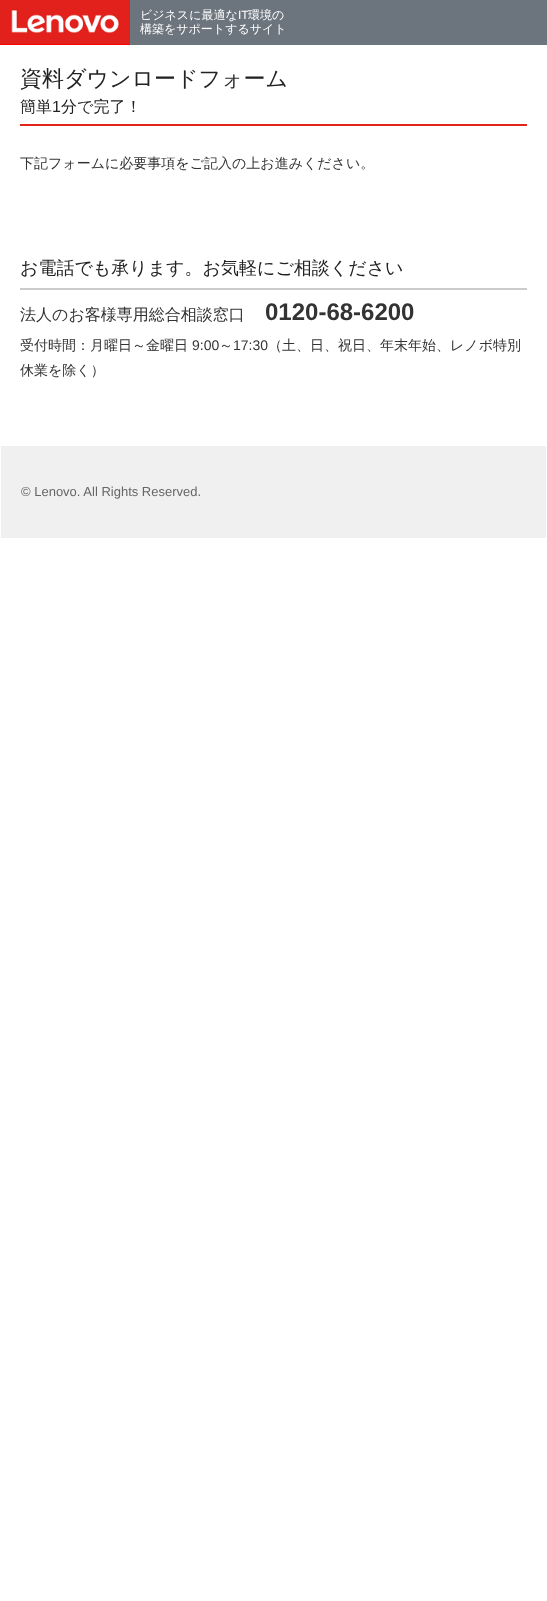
<?xml version="1.0" encoding="UTF-8"?>
<svg xmlns="http://www.w3.org/2000/svg" xmlns:xlink="http://www.w3.org/1999/xlink" width="547" height="1601">
  <rect width="100%" height="100%" fill="#ffffff" />
  <rect x="130" width="417" height="45" fill="#6c747d" />
  <rect y="44" width="130" height="1" fill="#ff0000" />
  <image x="0" y="0" width="130" height="44" xlink:href="image1.png" />
  <rect x="20" y="124" width="507" height="2" fill="#e2231a" />
  <rect x="20" y="288" width="507" height="2" fill="#cccccc" />
  <rect x="1" y="446" width="545" height="92" fill="#f0f0f0" />
  <text x="140" y="19" style="font-family: WenQuanYi Zen Hei; font-size: 12px; font-weight: 500; fill: #ffffff">ビジネスに最適な</text>
  <text x="238" y="19" style="font-family: Liberation Sans; font-size: 12px; fill: #ffffff">IT</text>
  <text x="248" y="19" style="font-family: WenQuanYi Zen Hei; font-size: 12px; font-weight: 500; fill: #ffffff">環境の</text>
  <text x="140" y="33" style="font-family: WenQuanYi Zen Hei; font-size: 12px; font-weight: 500; fill: #ffffff">構築をサポートするサイト</text>
  <text x="20" y="86" style="font-family: WenQuanYi Zen Hei; font-size: 22px; font-weight: 500; fill: #222222">資料ダウンロードフォーム</text>
  <text x="20" y="112" style="font-family: WenQuanYi Zen Hei; font-size: 16px; font-weight: 500; fill: #222222">簡単</text>
  <text x="52" y="112" style="font-family: Liberation Sans; font-size: 16px; fill: #222222">1</text>
  <text x="61" y="112" style="font-family: WenQuanYi Zen Hei; font-size: 16px; font-weight: 500; fill: #222222">分で完了！</text>
  <text x="20" y="168" style="font-family: WenQuanYi Zen Hei; font-size: 14px; font-weight: 500; fill: #333333">下記フォームに必要事項をご記入の上お進みください。</text>
  <text x="20" y="274" style="font-family: WenQuanYi Zen Hei; font-size: 18px; font-weight: 500; fill: #222222">お電話でも承ります。お気軽にご相談ください</text>
  <text x="20" y="320" style="font-family: WenQuanYi Zen Hei; font-size: 16px; font-weight: 500; fill: #333333">法人のお客様専用総合相談窓口</text>
  <text x="265" y="320" style="font-family: Liberation Sans; font-size: 24px; font-weight: bold; fill: #333333">0120-68-6200</text>
  <text x="20" y="350" style="font-family: WenQuanYi Zen Hei; font-size: 14px; font-weight: 500; fill: #333333">受付時間：月曜日～金曜日</text>
  <text x="192" y="350" style="font-family: Liberation Sans; font-size: 14px; fill: #333333">9:00</text>
  <text x="219" y="350" style="font-family: WenQuanYi Zen Hei; font-size: 14px; font-weight: 500; fill: #333333">～</text>
  <text x="233" y="350" style="font-family: Liberation Sans; font-size: 14px; fill: #333333">17:30</text>
  <text x="268" y="350" style="font-family: WenQuanYi Zen Hei; font-size: 14px; font-weight: 500; fill: #333333">（土、日、祝日、年末年始、レノボ特別</text>
  <text x="20" y="375" style="font-family: WenQuanYi Zen Hei; font-size: 14px; font-weight: 500; fill: #333333">休業を除く）</text>
  <text x="21" y="496" style="font-family: Liberation Sans; font-size: 13px; fill: #666666">© Lenovo. All Rights Reserved.</text>
</svg>
